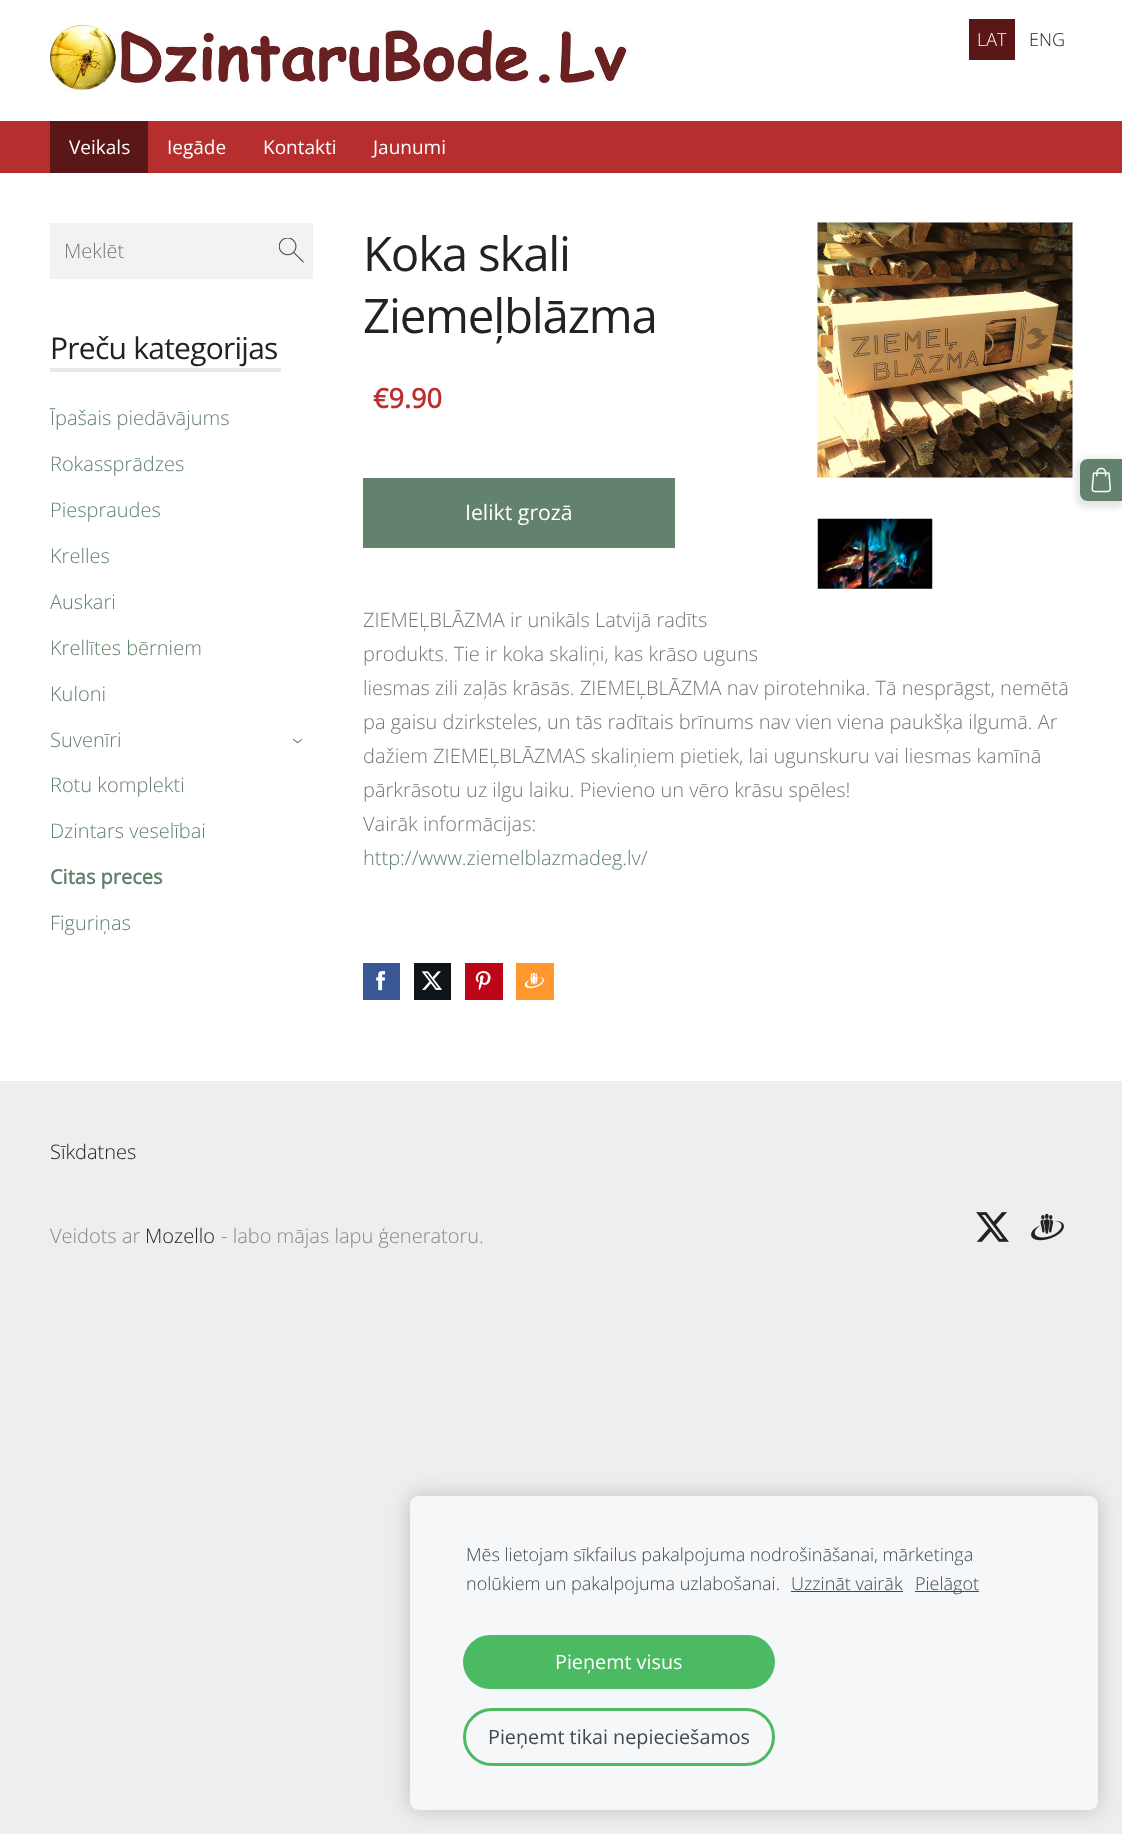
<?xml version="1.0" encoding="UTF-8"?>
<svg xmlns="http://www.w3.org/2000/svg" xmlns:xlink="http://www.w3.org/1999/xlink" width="1122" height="1834">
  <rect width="100%" height="100%" fill="#eeeeee" />
  <rect width="1122" height="1081" fill="#ffffff" />
  <image x="50" y="25" width="578" height="65" xlink:href="image1.png" />
  <rect x="969" y="19" width="46" height="41" fill="#5b1717" />
  <rect y="121" width="1122" height="52" fill="#b62e2e" />
  <rect x="50" y="121" width="98" height="52" fill="#5b1717" />
  <rect x="50" y="223" width="263" height="56" fill="#f2f2f2" />
  <image x="279" y="238" width="25" height="25" xlink:href="image2.png" />
  <rect x="50" y="368" width="231" height="4" fill="#e8e8e8" />
  <image x="817" y="222" width="256" height="256" xlink:href="image3.png" />
  <image x="817" y="518" width="116" height="71" xlink:href="image4.png" />
  <rect x="363" y="478" width="312" height="70" fill="#63826d" />
  <rect x="363" y="963" width="37" height="37" fill="#3a5795" />
  <image x="376" y="971" width="10" height="20" xlink:href="image5.png" />
  <rect x="414" y="963" width="37" height="37" fill="#0f1419" />
  <image x="421" y="971" width="21" height="19" xlink:href="image6.png" />
  <rect x="465" y="963" width="38" height="37" fill="#bc0618" />
  <image x="475" y="971" width="16" height="20" xlink:href="image7.png" />
  <rect x="516" y="963" width="38" height="37" fill="#fe972d" />
  <image x="524" y="972" width="20" height="17" xlink:href="image8.png" />
  <rect x="1076" y="458" width="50" height="50" rx="11" fill="#000000" fill-opacity="0.1" filter="blur(3px)" />
  <path d="M 1088 459 h 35 v 42 h -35 c -4.5 0 -8 -3.5 -8 -8 v -26 c 0 -4.5 3.5 -8 8 -8 z" fill="#63826d" />
  <image x="1091" y="467" width="21" height="26" xlink:href="image9.png" />
  <image x="976" y="1212" width="33" height="30" xlink:href="image10.png" />
  <image x="1031" y="1213" width="33" height="28" xlink:href="image11.png" />
  <rect x="410" y="1496" width="688" height="314" rx="9" fill="#000000" fill-opacity="0.2" filter="blur(10.5px)" />
  <rect x="410" y="1496" width="688" height="314" rx="9" fill="#f6f7f9" />
  <rect x="791" y="1591" width="112" height="1" fill="#3f4954" />
  <rect x="915" y="1591" width="64" height="1" fill="#3f4954" />
  <rect x="463" y="1635" width="312" height="54" rx="27" fill="#4cb963" />
  <rect x="464.5" y="1709.5" width="309" height="55" rx="27.5" fill="none" stroke="#4cb963" stroke-width="3" />
  <text x="977" y="46" style="font-family: Open Sans; font-size: 18px; font-weight: 300; fill: #ffffff">LAT</text>
  <text x="1029" y="46" style="font-family: Open Sans; font-size: 18px; font-weight: 300; fill: #222222">ENG</text>
  <text x="69" y="154" style="font-family: Open Sans; font-size: 19px; fill: #ffffff">Veikals</text>
  <text x="167" y="154" style="font-family: Open Sans; font-size: 19px; fill: #ffffff">Iegāde</text>
  <text x="263" y="154" style="font-family: Open Sans; font-size: 19px; fill: #ffffff">Kontakti</text>
  <text x="373" y="154" style="font-family: Open Sans; font-size: 19px; fill: #ffffff">Jaunumi</text>
  <text x="64" y="258" style="font-family: Open Sans; font-size: 20px; font-weight: 300; fill: #777777">Meklēt</text>
  <text x="50" y="359" style="font-family: Open Sans; font-size: 30px; letter-spacing: -0.75px; fill: #222222">Preču kategorijas</text>
  <text x="50" y="425" style="font-family: Open Sans; font-size: 20px; font-weight: 300; fill: #63826d">Īpašais piedāvājums</text>
  <text x="50" y="471" style="font-family: Open Sans; font-size: 20px; font-weight: 300; fill: #63826d">Rokassprādzes</text>
  <text x="50" y="517" style="font-family: Open Sans; font-size: 20px; font-weight: 300; fill: #63826d">Piespraudes</text>
  <text x="50" y="563" style="font-family: Open Sans; font-size: 20px; font-weight: 300; fill: #63826d">Krelles</text>
  <text x="50" y="609" style="font-family: Open Sans; font-size: 20px; font-weight: 300; fill: #63826d">Auskari</text>
  <text x="50" y="655" style="font-family: Open Sans; font-size: 20px; font-weight: 300; fill: #63826d">Krellītes bērniem</text>
  <text x="50" y="701" style="font-family: Open Sans; font-size: 20px; font-weight: 300; fill: #63826d">Kuloni</text>
  <text x="50" y="747" style="font-family: Open Sans; font-size: 20px; font-weight: 300; fill: #63826d">Suvenīri</text>
  <text x="291" y="738" transform="rotate(90 291 738)" style="font-family: Open Sans; font-size: 24px; font-weight: 300; fill: #777777">›</text>
  <text x="50" y="792" style="font-family: Open Sans; font-size: 20px; font-weight: 300; fill: #63826d">Rotu komplekti</text>
  <text x="50" y="838" style="font-family: Open Sans; font-size: 20px; font-weight: 300; fill: #63826d">Dzintars veselībai</text>
  <text x="50" y="884" style="font-family: Open Sans; font-size: 20px; font-weight: bold; fill: #63826d">Citas preces</text>
  <text x="50" y="930" style="font-family: Open Sans; font-size: 20px; font-weight: 300; fill: #63826d">Figuriņas</text>
  <text x="363" y="271" style="font-family: Open Sans; font-size: 47.5px; letter-spacing: -1.25px; fill: #222222">Koka skali</text>
  <text x="363" y="333" style="font-family: Open Sans; font-size: 47.5px; letter-spacing: -1.25px; fill: #222222">Ziemeļblāzma</text>
  <text x="373" y="408" style="font-family: Open Sans; font-size: 27px; font-weight: bold; fill: #bc2f2f">€9.90</text>
  <text x="465" y="520" style="font-family: Open Sans; font-size: 21.25px; fill: #ffffff">Ielikt grozā</text>
  <text x="363" y="627" style="font-family: Open Sans; font-size: 20px; font-weight: 300; fill: #777777">ZIEMEĻBLĀZMA ir unikāls Latvijā radīts</text>
  <text x="363" y="661" style="font-family: Open Sans; font-size: 20px; font-weight: 300; fill: #777777">produkts. Tie ir koka skaliņi, kas krāso uguns</text>
  <text x="363" y="695" style="font-family: Open Sans; font-size: 20px; font-weight: 300; fill: #777777">liesmas zili zaļās krāsās. ZIEMEĻBLĀZMA nav pirotehnika. Tā nesprāgst, nemētā</text>
  <text x="363" y="729" style="font-family: Open Sans; font-size: 20px; font-weight: 300; fill: #777777">pa gaisu dzirksteles, un tās radītais brīnums nav vien viena paukšķa ilgumā. Ar</text>
  <text x="363" y="763" style="font-family: Open Sans; font-size: 20px; font-weight: 300; fill: #777777">dažiem ZIEMEĻBLĀZMAS skaliņiem pietiek, lai ugunskuru vai liesmas kamīnā</text>
  <text x="363" y="797" style="font-family: Open Sans; font-size: 20px; font-weight: 300; fill: #777777">pārkrāsotu uz ilgu laiku. Pievieno un vēro krāsu spēles!</text>
  <text x="363" y="831" style="font-family: Open Sans; font-size: 20px; font-weight: 300; fill: #777777">Vairāk informācijas:</text>
  <text x="363" y="865" style="font-family: Open Sans; font-size: 20px; font-weight: 300; fill: #63826d">http://www.ziemelblazmadeg.lv/</text>
  <text x="50" y="1159" style="font-family: Open Sans; font-size: 20px; font-weight: 300; fill: #222222">Sīkdatnes</text>
  <text x="50" y="1243" style="font-family: Open Sans; font-size: 20px; font-weight: 300; fill: #888888">Veidots ar</text>
  <text x="145" y="1243" style="font-family: Open Sans; font-size: 20px; font-weight: 300; fill: #222222">Mozello</text>
  <text x="221" y="1243" style="font-family: Open Sans; font-size: 20px; font-weight: 300; fill: #888888">- labo mājas lapu ģeneratoru.</text>
  <text x="466" y="1561" style="font-family: Open Sans; font-size: 18px; font-weight: 300; fill: #3f4954">Mēs lietojam sīkfailus pakalpojuma nodrošināšanai, mārketinga</text>
  <text x="466" y="1590" style="font-family: Open Sans; font-size: 18px; font-weight: 300; fill: #3f4954">nolūkiem un pakalpojuma uzlabošanai.</text>
  <text x="791" y="1590" style="font-family: Open Sans; font-size: 18px; font-weight: 300; fill: #3f4954">Uzzināt vairāk</text>
  <text x="915" y="1590" style="font-family: Open Sans; font-size: 18px; font-weight: 300; fill: #3f4954">Pielāgot</text>
  <text x="555" y="1669" style="font-family: Open Sans; font-size: 19.75px; fill: #ffffff">Pieņemt visus</text>
  <text x="488" y="1744" style="font-family: Open Sans; font-size: 19.75px; fill: #3f4954">Pieņemt tikai nepieciešamos</text>
</svg>
